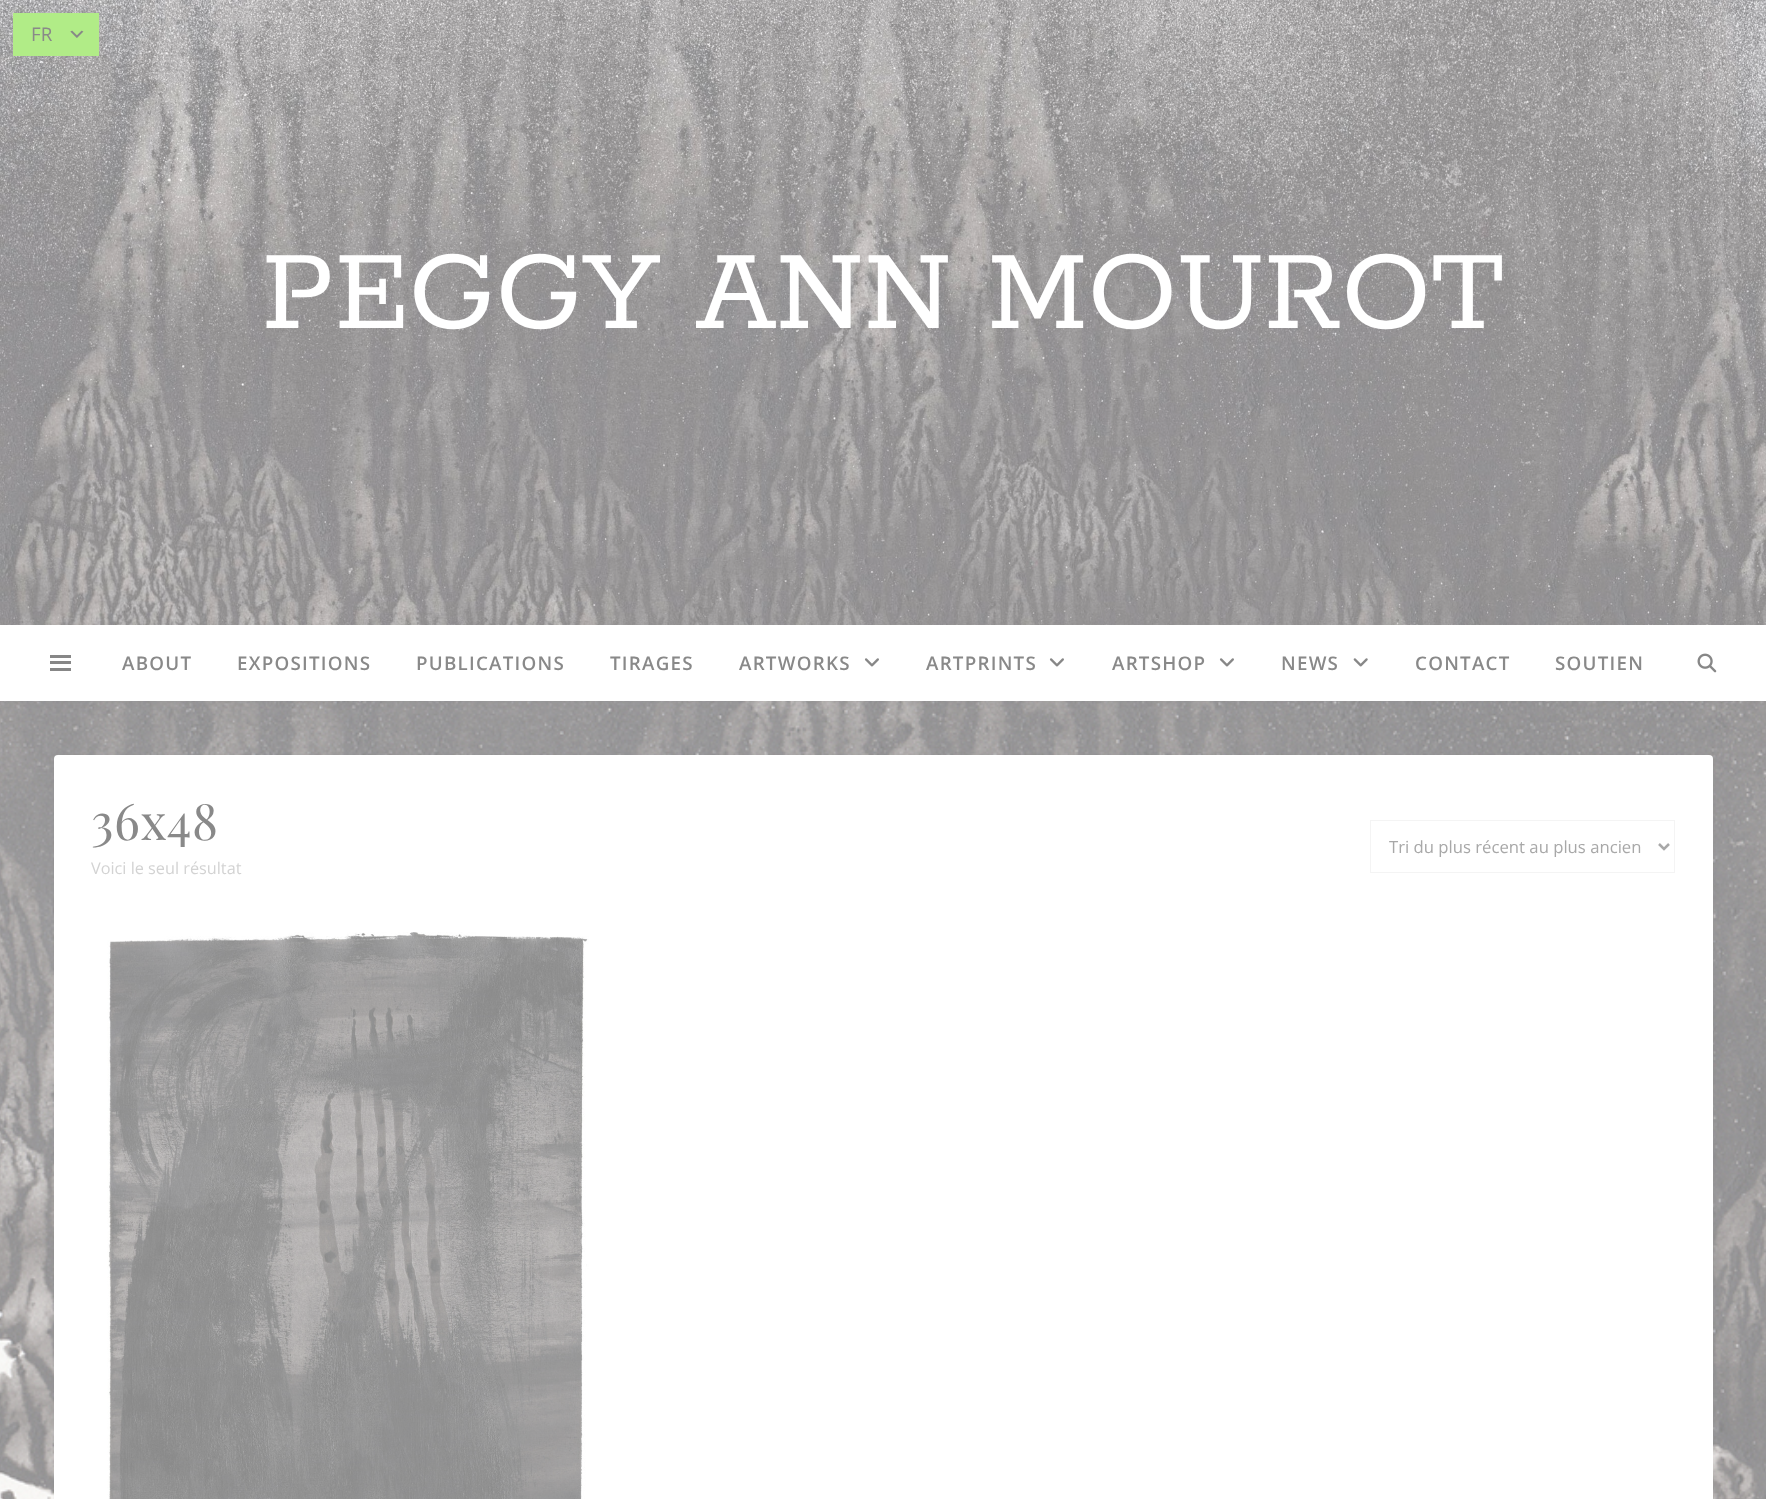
<?xml version="1.0" encoding="UTF-8"?>
<svg xmlns="http://www.w3.org/2000/svg" xmlns:xlink="http://www.w3.org/1999/xlink" width="1766" height="1499">
  <rect width="100%" height="100%" fill="#ffffff" />
  <image x="0" y="701" width="1766" height="798" xlink:href="image1.png" />
  <image x="0" y="0" width="1766" height="625" xlink:href="image3.png" />
  <rect x="13" y="13" width="86" height="43" fill="#b1ec87" />
  <image x="70" y="30" width="14" height="8" xlink:href="image2.png" />
  <rect y="626" width="1766" height="77" fill="#878787" fill-opacity="0.1" filter="blur(3px)" />
  <rect y="625" width="1766" height="76" fill="#ffffff" />
  <rect x="50" y="655" width="21" height="3" fill="#878787" />
  <rect x="50" y="661" width="21" height="3" fill="#878787" />
  <rect x="50" y="668" width="21" height="3" fill="#878787" />
  <image x="864" y="658" width="15" height="9" xlink:href="image4.png" />
  <image x="1049" y="658" width="15" height="9" xlink:href="image4.png" />
  <image x="1219" y="658" width="15" height="9" xlink:href="image4.png" />
  <image x="1353" y="658" width="15" height="9" xlink:href="image5.png" />
  <image x="1697" y="653" width="20" height="20" xlink:href="image6.png" />
  <rect x="55" y="756" width="1659" height="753" rx="4" fill="#878787" fill-opacity="0.1" filter="blur(2px)" />
  <rect x="54" y="755" width="1659" height="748" rx="4" fill="#ffffff" />
  <rect x="1370.5" y="820.5" width="304" height="52" fill="none" stroke="#f4f4f4" />
  <path d="M 1659 844 l 5 5 l 5 -5" fill="none" stroke="#a8a8a8" stroke-width="2.5" />
  <image x="107" y="932" width="482" height="567" xlink:href="image7.png" />
  <text x="31" y="41" style="font-family: Open Sans; font-size: 18.75px; fill: #898989">FR</text>
  <text x="262" y="328" style="font-family: Rokkitt; font-size: 125px; font-weight: 600; fill: #ffffff">PEGGY ANN MOUROT</text>
  <text x="122" y="670" style="font-family: Open Sans; font-size: 18.75px; font-weight: 600; letter-spacing: 1.25px; fill: #898989">ABOUT</text>
  <text x="237" y="670" style="font-family: Open Sans; font-size: 18.75px; font-weight: 600; letter-spacing: 1.25px; fill: #898989">EXPOSITIONS</text>
  <text x="416" y="670" style="font-family: Open Sans; font-size: 18.75px; font-weight: 600; letter-spacing: 1.25px; fill: #898989">PUBLICATIONS</text>
  <text x="610" y="670" style="font-family: Open Sans; font-size: 18.75px; font-weight: 600; letter-spacing: 1.25px; fill: #898989">TIRAGES</text>
  <text x="739" y="670" style="font-family: Open Sans; font-size: 18.75px; font-weight: 600; letter-spacing: 1.25px; fill: #898989">ARTWORKS</text>
  <text x="926" y="670" style="font-family: Open Sans; font-size: 18.75px; font-weight: 600; letter-spacing: 1.25px; fill: #898989">ARTPRINTS</text>
  <text x="1112" y="670" style="font-family: Open Sans; font-size: 18.75px; font-weight: 600; letter-spacing: 1.25px; fill: #898989">ARTSHOP</text>
  <text x="1281" y="670" style="font-family: Open Sans; font-size: 18.75px; font-weight: 600; letter-spacing: 1.25px; fill: #898989">NEWS</text>
  <text x="1415" y="670" style="font-family: Open Sans; font-size: 18.75px; font-weight: 600; letter-spacing: 1.25px; fill: #898989">CONTACT</text>
  <text x="1555" y="670" style="font-family: Open Sans; font-size: 18.75px; font-weight: 600; letter-spacing: 1.25px; fill: #898989">SOUTIEN</text>
  <text x="91" y="840" style="font-family: Playfair Display; font-size: 50px; letter-spacing: 0.5px; fill: #898989">36x48</text>
  <text x="1389" y="853" style="font-family: Open Sans; font-size: 16.7px; fill: #a8a8a8">Tri du plus récent au plus ancien</text>
  <text x="91" y="874" style="font-family: Open Sans; font-size: 16.25px; fill: #d3d3d3">Voici le seul résultat</text>
</svg>
